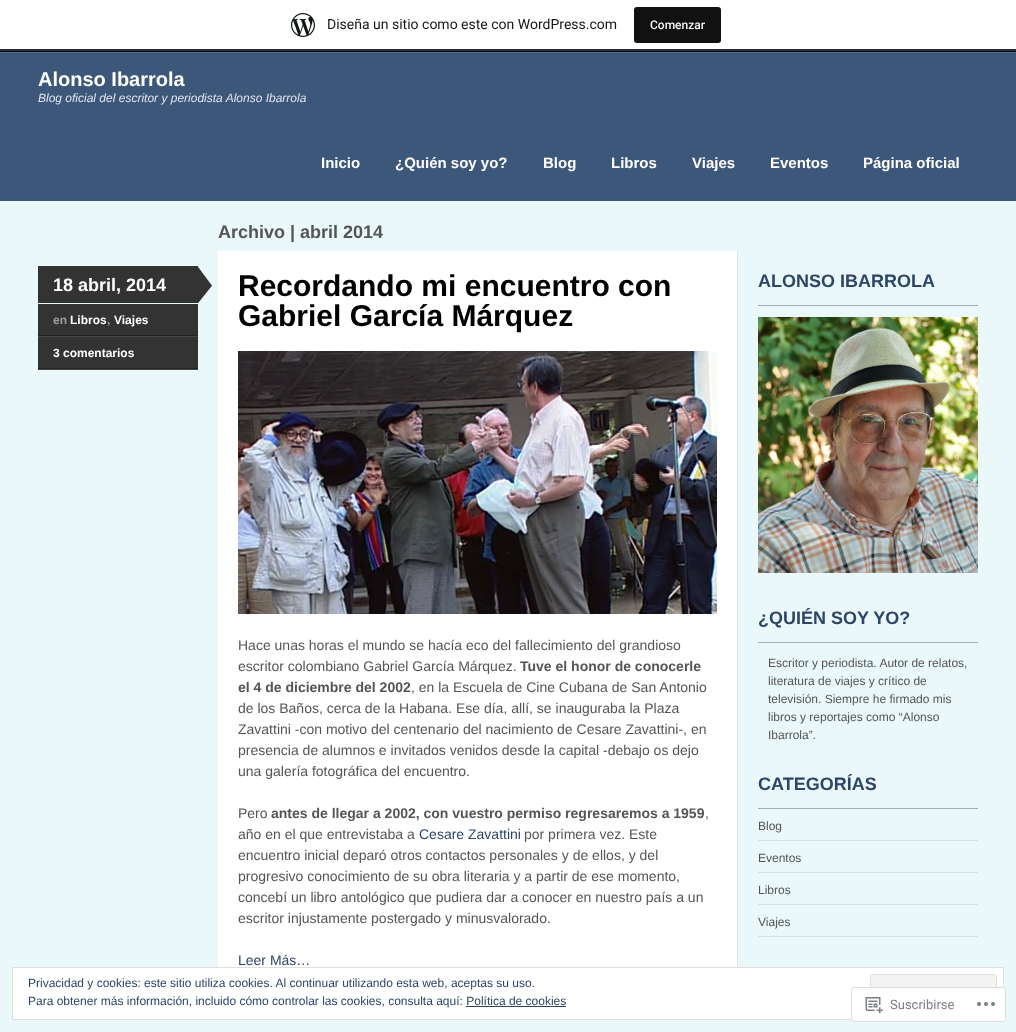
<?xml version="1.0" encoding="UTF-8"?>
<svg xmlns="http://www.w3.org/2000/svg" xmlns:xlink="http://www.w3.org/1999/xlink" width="1016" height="1032">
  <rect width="100%" height="100%" fill="#eaf8f9" />
  <rect y="49" width="1016" height="152" fill="#3d577a" />
  <image x="0" y="49" width="1016" height="4" xlink:href="image2.png" />
  <rect y="1" width="1016" height="49" fill="#000000" fill-opacity="0.05" filter="blur(1px)" />
  <path d="M 1 49 v 3 h 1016 v -49 h -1 v 46 z" fill="#000000" fill-opacity="0.08" />
  <rect width="1016" height="49" fill="#ffffff" />
  <image x="291" y="13" width="24" height="24" xlink:href="image1.png" />
  <rect x="634" y="7" width="87" height="36" rx="3" fill="#111111" />
  <rect x="38" y="266" width="160" height="37" fill="#333333" />
  <image x="198" y="267" width="14" height="37" xlink:href="image3.png" />
  <rect x="38" y="304" width="160" height="66" fill="#333333" />
  <image x="38" y="335" width="160" height="2" xlink:href="image4.png" />
  <image x="38" y="368" width="160" height="2" xlink:href="image4.png" />
  <rect x="218" y="251" width="519" height="716" fill="#ffffff" />
  <rect x="737" y="251" width="1" height="716" fill="#e3e3e3" />
  <image x="238" y="351" width="479" height="263" xlink:href="image5.png" />
  <rect x="758" y="305" width="220" height="1" fill="#a4aeae" />
  <image x="758" y="317" width="220" height="256" xlink:href="image6.png" />
  <rect x="758" y="642" width="220" height="1" fill="#a4aeae" />
  <rect x="758" y="808" width="220" height="1" fill="#a4aeae" />
  <image x="758" y="840" width="220" height="2" xlink:href="image7.png" />
  <image x="758" y="872" width="220" height="2" xlink:href="image7.png" />
  <image x="758" y="904" width="220" height="2" xlink:href="image7.png" />
  <image x="758" y="936" width="220" height="2" xlink:href="image7.png" />
  <rect x="12.5" y="967.5" width="991" height="52" fill="#ffffff" stroke="#dedede" />
  <rect x="870.5" y="974.5" width="126" height="38" rx="2.5" fill="#f3f3f3" stroke="#dedede" />
  <rect x="851" y="987" width="155" height="35" rx="3" fill="#ffffff" fill-opacity="0.98" />
  <rect x="851.5" y="987.5" width="154" height="34" rx="2.5" fill="none" stroke="#dcdcde" stroke-opacity="0.98" />
  <image x="865" y="997" width="18" height="17" xlink:href="image8.png" />
  <image x="977" y="1002" width="18" height="4" xlink:href="image9.png" />
  <text x="327" y="29" style="font-family: Roboto; font-size: 14px; fill: #171717">Diseña un sitio como este con WordPress.com</text>
  <text x="650" y="29" style="font-family: Roboto; font-size: 12px; font-weight: 500; fill: #f6f7f7">Comenzar</text>
  <text x="38" y="86" style="font-family: Liberation Sans; font-size: 20px; font-weight: bold; fill: #ffffff">Alonso Ibarrola</text>
  <text x="38" y="102" style="font-family: Liberation Sans; font-size: 12px; font-style: italic; fill: #e0e4ed">Blog oficial del escritor y periodista Alonso Ibarrola</text>
  <text x="321" y="168" style="font-family: Liberation Sans; font-size: 15px; font-weight: bold; fill: #ffffff">Inicio</text>
  <text x="395" y="168" style="font-family: Liberation Sans; font-size: 15px; font-weight: bold; fill: #ffffff">¿Quién soy yo?</text>
  <text x="543" y="168" style="font-family: Liberation Sans; font-size: 15px; font-weight: bold; fill: #ffffff">Blog</text>
  <text x="611" y="168" style="font-family: Liberation Sans; font-size: 15px; font-weight: bold; fill: #ffffff">Libros</text>
  <text x="692" y="168" style="font-family: Liberation Sans; font-size: 15px; font-weight: bold; fill: #ffffff">Viajes</text>
  <text x="770" y="168" style="font-family: Liberation Sans; font-size: 15px; font-weight: bold; fill: #ffffff">Eventos</text>
  <text x="863" y="168" style="font-family: Liberation Sans; font-size: 15px; font-weight: bold; fill: #ffffff">Página oficial</text>
  <text x="218" y="238" style="font-family: Liberation Sans; font-size: 18px; font-weight: bold; fill: #555555">Archivo | abril 2014</text>
  <text x="53" y="291" style="font-family: Liberation Sans; font-size: 18px; font-weight: bold; fill: #ffffff">18 abril, 2014</text>
  <text x="53" y="324" style="font-family: Liberation Sans; font-size: 12px; font-weight: bold; fill: #9f9f9f">en</text>
  <text x="70" y="324" style="font-family: Liberation Sans; font-size: 12px; font-weight: bold; fill: #ffffff">Libros</text>
  <text x="107" y="324" style="font-family: Liberation Sans; font-size: 12px; font-weight: bold; fill: #9f9f9f">,</text>
  <text x="114" y="324" style="font-family: Liberation Sans; font-size: 12px; font-weight: bold; fill: #ffffff">Viajes</text>
  <text x="53" y="357" style="font-family: Liberation Sans; font-size: 12px; font-weight: bold; fill: #ffffff">3 comentarios</text>
  <text x="238" y="296" style="font-family: Liberation Sans; font-size: 30px; font-weight: bold; fill: #000000">Recordando mi encuentro con</text>
  <text x="238" y="326" style="font-family: Liberation Sans; font-size: 30px; font-weight: bold; fill: #000000">Gabriel García Márquez</text>
  <text x="238" y="650" style="font-family: Liberation Sans; font-size: 14px; fill: #555555">Hace unas horas el mundo se hacía eco del fallecimiento del grandioso</text>
  <text x="238" y="671" style="font-family: Liberation Sans; font-size: 14px; fill: #555555">escritor colombiano Gabriel García Márquez.</text>
  <text x="520" y="671" style="font-family: Liberation Sans; font-size: 14px; font-weight: bold; fill: #555555">Tuve el honor de conocerle</text>
  <text x="238" y="692" style="font-family: Liberation Sans; font-size: 14px; font-weight: bold; fill: #555555">el 4 de diciembre del 2002</text>
  <text x="411" y="692" style="font-family: Liberation Sans; font-size: 14px; fill: #555555">, en la Escuela de Cine Cubana de San Antonio</text>
  <text x="238" y="713" style="font-family: Liberation Sans; font-size: 14px; fill: #555555">de los Baños, cerca de la Habana. Ese día, allí, se inauguraba la Plaza</text>
  <text x="238" y="734" style="font-family: Liberation Sans; font-size: 14px; fill: #555555">Zavattini -con motivo del centenario del nacimiento de Cesare Zavattini-, en</text>
  <text x="238" y="755" style="font-family: Liberation Sans; font-size: 14px; fill: #555555">presencia de alumnos e invitados venidos desde la capital -debajo os dejo</text>
  <text x="238" y="776" style="font-family: Liberation Sans; font-size: 14px; fill: #555555">una galería fotográfica del encuentro.</text>
  <text x="238" y="818" style="font-family: Liberation Sans; font-size: 14px; fill: #555555">Pero</text>
  <text x="271" y="818" style="font-family: Liberation Sans; font-size: 14px; font-weight: bold; fill: #555555">antes de llegar a 2002, con vuestro permiso regresaremos a 1959</text>
  <text x="705" y="818" style="font-family: Liberation Sans; font-size: 14px; fill: #555555">,</text>
  <text x="238" y="839" style="font-family: Liberation Sans; font-size: 14px; fill: #555555">año en el que entrevistaba a</text>
  <text x="419" y="839" style="font-family: Liberation Sans; font-size: 14px; fill: #2d4567">Cesare Zavattini</text>
  <text x="524" y="839" style="font-family: Liberation Sans; font-size: 14px; fill: #555555">por primera vez. Este</text>
  <text x="238" y="860" style="font-family: Liberation Sans; font-size: 14px; fill: #555555">encuentro inicial deparó otros contactos personales y de ellos, y del</text>
  <text x="238" y="881" style="font-family: Liberation Sans; font-size: 14px; fill: #555555">progresivo conocimiento de su obra literaria y a partir de ese momento,</text>
  <text x="238" y="902" style="font-family: Liberation Sans; font-size: 14px; fill: #555555">concebí un libro antológico que pudiera dar a conocer en nuestro país a un</text>
  <text x="238" y="923" style="font-family: Liberation Sans; font-size: 14px; fill: #555555">escritor injustamente postergado y minusvalorado.</text>
  <text x="238" y="965" style="font-family: Liberation Sans; font-size: 14px; fill: #2d4567">Leer Más…</text>
  <text x="758" y="287" style="font-family: Liberation Sans; font-size: 18px; font-weight: bold; fill: #2d4567">ALONSO IBARROLA</text>
  <text x="758" y="624" style="font-family: Liberation Sans; font-size: 18px; font-weight: bold; fill: #2d4567">¿QUIÉN SOY YO?</text>
  <text x="768" y="667" style="font-family: Liberation Sans; font-size: 12px; fill: #555555">Escritor y periodista. Autor de relatos,</text>
  <text x="768" y="685" style="font-family: Liberation Sans; font-size: 12px; fill: #555555">literatura de viajes y crítico de</text>
  <text x="768" y="703" style="font-family: Liberation Sans; font-size: 12px; fill: #555555">televisión. Siempre he firmado mis</text>
  <text x="768" y="721" style="font-family: Liberation Sans; font-size: 12px; fill: #555555">libros y reportajes como “Alonso</text>
  <text x="768" y="739" style="font-family: Liberation Sans; font-size: 12px; fill: #555555">Ibarrola”.</text>
  <text x="758" y="790" style="font-family: Liberation Sans; font-size: 18px; font-weight: bold; fill: #2d4567">CATEGORÍAS</text>
  <text x="758" y="830" style="font-family: Liberation Sans; font-size: 12px; fill: #555555">Blog</text>
  <text x="758" y="862" style="font-family: Liberation Sans; font-size: 12px; fill: #555555">Eventos</text>
  <text x="758" y="894" style="font-family: Liberation Sans; font-size: 12px; fill: #555555">Libros</text>
  <text x="758" y="926" style="font-family: Liberation Sans; font-size: 12px; fill: #555555">Viajes</text>
  <text x="28" y="987" style="font-family: Liberation Sans; font-size: 12px; fill: #2d4567">Privacidad y cookies: este sitio utiliza cookies. Al continuar utilizando esta web, aceptas su uso.</text>
  <text x="28" y="1005" style="font-family: Liberation Sans; font-size: 12px; fill: #2d4567">Para obtener más información, incluido cómo controlar las cookies, consulta aquí: Política de cookies</text>
  <rect x="466" y="1006" width="100" height="1" fill="#2e4467" />
  <text x="890" y="1009" style="font-family: Roboto; font-size: 13px; fill: #7b7f84">Suscribirse</text>
</svg>
